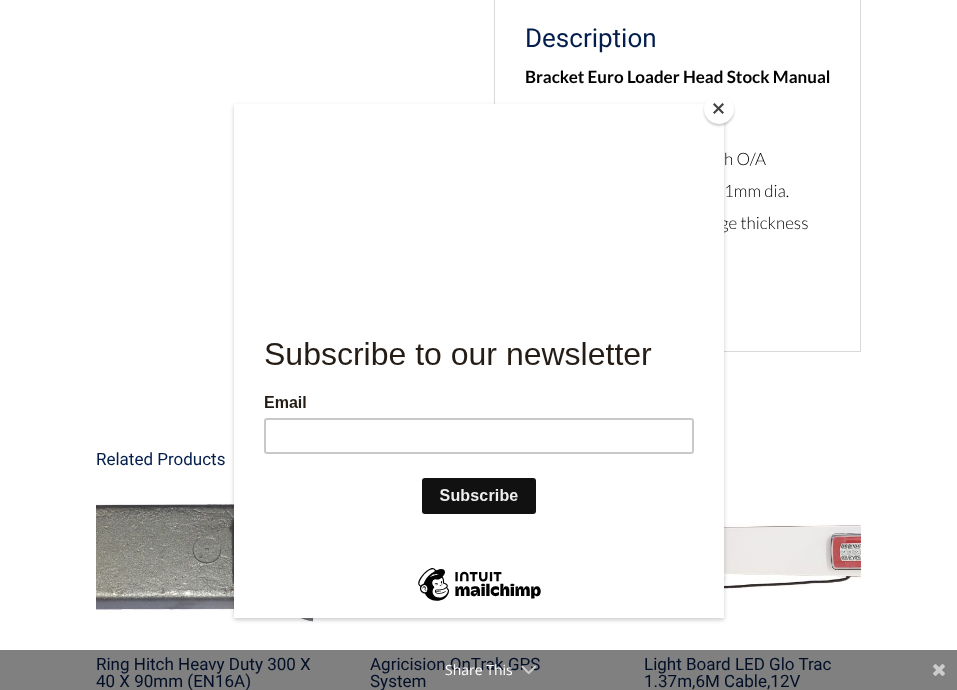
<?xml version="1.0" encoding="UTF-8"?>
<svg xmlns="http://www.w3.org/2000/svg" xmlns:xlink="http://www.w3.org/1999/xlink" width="957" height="690">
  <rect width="100%" height="100%" fill="#ffffff" />
  <rect y="650" width="957" height="40" fill="#808080" />
  <rect x="494.5" y="-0.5" width="366" height="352" fill="none" stroke="#d9d9d9" />
  <image x="96" y="493" width="217" height="130" xlink:href="image1.png" />
  <image x="724" y="524" width="137" height="85" xlink:href="image2.png" />
  <rect x="234" y="106" width="490" height="514" fill="#000000" fill-opacity="0.2" filter="blur(2px)" />
  <image x="933" y="664" width="12" height="12" xlink:href="image5.png" />
  <text x="525" y="47" style="font-family: Roboto; font-size: 26px; fill: #031e4d">Description</text>
  <text x="525" y="83" style="font-family: Lato; font-size: 17px; font-weight: bold; fill: #000000">Bracket Euro Loader Head Stock Manual</text>
  <text x="724" y="165" style="font-family: Lato; font-size: 17px; font-weight: 300; fill: #000000">h O/A</text>
  <text x="724" y="197" style="font-family: Lato; font-size: 17px; font-weight: 300; fill: #000000">1mm dia.</text>
  <text x="720" y="229" style="font-family: Lato; font-size: 17px; font-weight: 300; fill: #000000">ge thickness</text>
  <text x="96" y="465" style="font-family: Roboto; font-size: 17px; fill: #031e4d">Related Products</text>
  <text x="96" y="670" style="font-family: Roboto; font-size: 17px; fill: #020f27">Ring Hitch Heavy Duty 300 X</text>
  <text x="96" y="687" style="font-family: Roboto; font-size: 17px; fill: #020f27">40 X 90mm (EN16A)</text>
  <text x="370" y="670" style="font-family: Roboto; font-size: 17px; fill: #020f27">Agricision OnTrak GPS</text>
  <text x="370" y="687" style="font-family: Roboto; font-size: 17px; fill: #020f27">System</text>
  <text x="644" y="670" style="font-family: Roboto; font-size: 17px; fill: #020f27">Light Board LED Glo Trac</text>
  <text x="644" y="687" style="font-family: Roboto; font-size: 17px; fill: #020f27">1.37m,6M Cable,12V</text>
  <image x="234" y="104" width="490" height="514" xlink:href="image3.png" />
  <rect x="704" y="96" width="30" height="30" rx="15" fill="#000000" fill-opacity="0.2" filter="blur(1px)" />
  <circle cx="719" cy="109" r="15" fill="#ffffff" />
  <path d="M 722.5 103 l 1.5 1.5 l -9.5 9.5 l -1.5 -1.5 z" fill="#414141" />
  <path d="M 713 104.5 l 1.5 -1.5 l 9.5 9.5 l -1.5 1.5 z" fill="#414141" />
  <text x="445" y="675" style="font-family: Open Sans; font-size: 14px; fill: #ffffff">Share This</text>
  <image x="521" y="665" width="16" height="9" xlink:href="image4.png" />
</svg>
